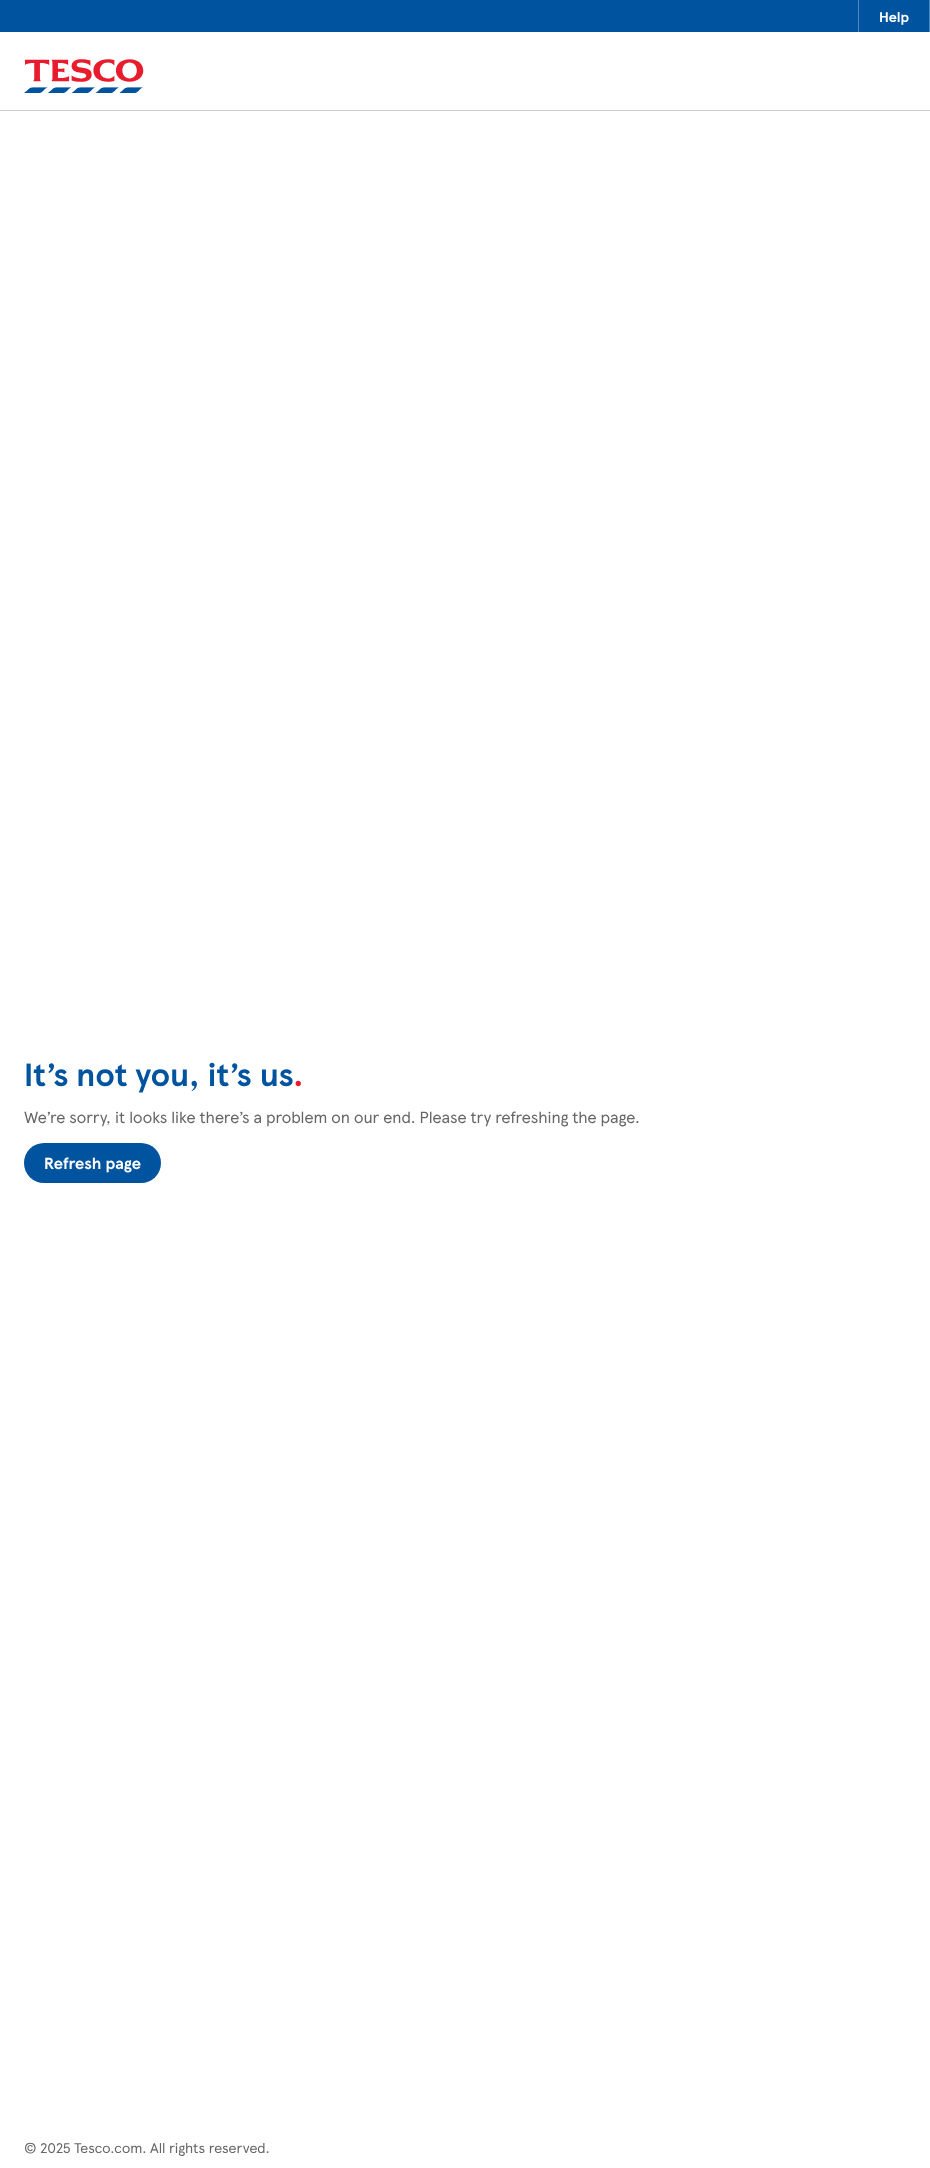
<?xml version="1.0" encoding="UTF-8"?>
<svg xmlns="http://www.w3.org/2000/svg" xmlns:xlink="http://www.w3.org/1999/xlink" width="930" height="2168">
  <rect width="100%" height="100%" fill="#ffffff" />
  <rect width="929" height="32" fill="#00539f" />
  <rect x="929" width="1" height="32" fill="#4d87bc" />
  <rect x="858" width="1" height="32" fill="#4d87bc" />
  <image x="24" y="59" width="120" height="34" xlink:href="image1.png" />
  <rect y="110" width="930" height="1" fill="#cccccc" />
  <rect x="24" y="1143" width="137" height="40" rx="20" fill="#00539f" />
  <text x="879" y="22" style="font-family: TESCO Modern; font-size: 14px; font-weight: bold; fill: #ffffff">Help</text>
  <text x="24" y="1086" style="font-family: TESCO Modern; font-size: 32px; font-weight: bold; fill: #00539f">It’s not you, it’s us</text>
  <text x="293" y="1086" style="font-family: TESCO Modern; font-size: 32px; font-weight: bold; fill: #e81c2d">.</text>
  <text x="24" y="1123" style="font-family: TESCO Modern; font-size: 16px; fill: #666666">We’re sorry, it looks like there’s a problem on our end. Please try refreshing the page.</text>
  <text x="44" y="1169" style="font-family: TESCO Modern; font-size: 16px; font-weight: bold; fill: #ffffff">Refresh page</text>
  <text x="24" y="2153" style="font-family: TESCO Modern; font-size: 14px; fill: #666666">© 2025 Tesco.com. All rights reserved.</text>
</svg>
